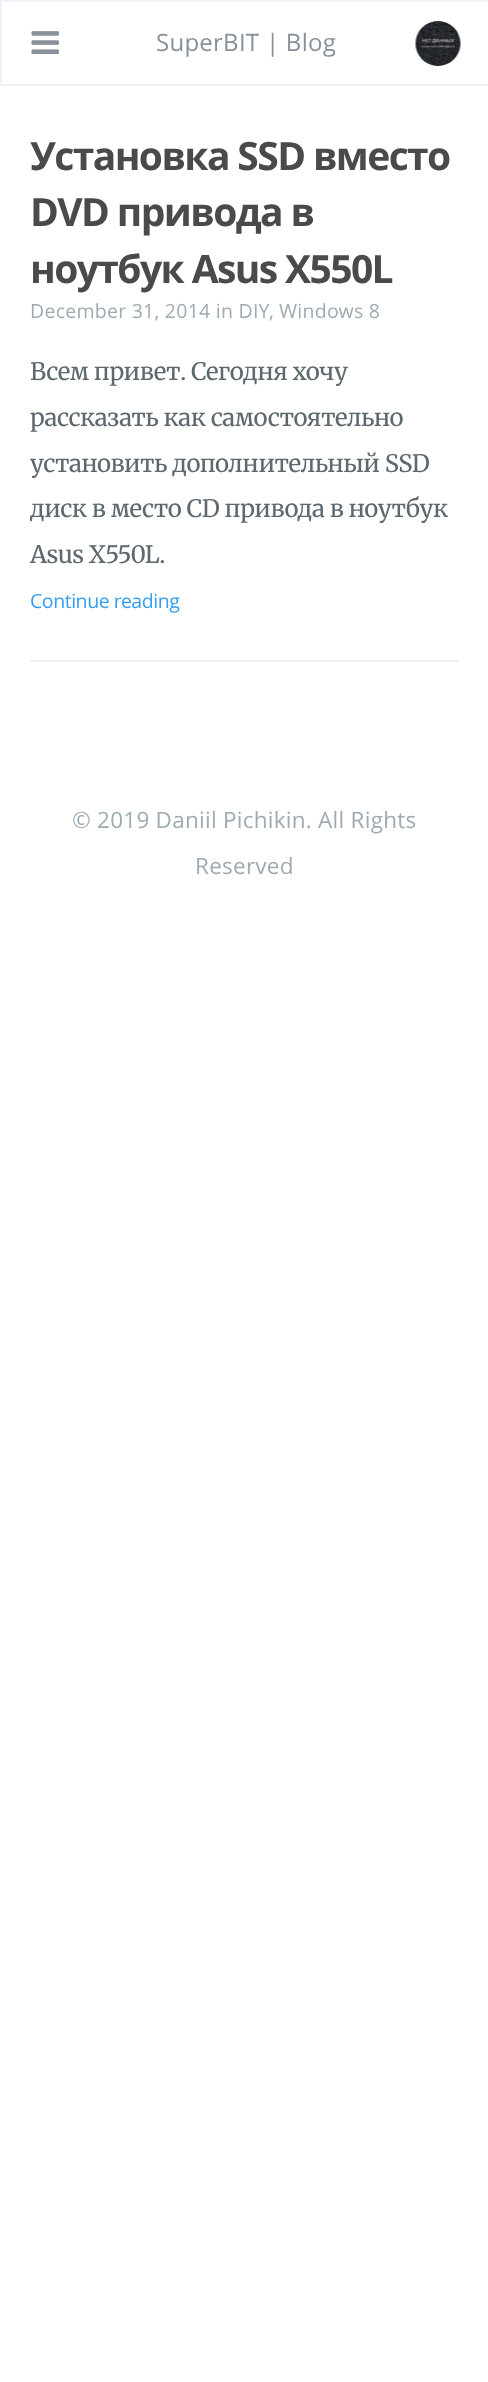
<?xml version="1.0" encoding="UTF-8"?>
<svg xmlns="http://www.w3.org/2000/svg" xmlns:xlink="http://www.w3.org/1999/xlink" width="488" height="2382">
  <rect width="100%" height="100%" fill="#ffffff" />
  <rect x="1" y="1" width="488" height="84" fill="none" stroke="#eef2f8" stroke-width="2" />
  <image x="31" y="31" width="28" height="23" xlink:href="image1.png" />
  <image x="415" y="21" width="46" height="45" xlink:href="image2.png" />
  <rect x="30" y="660" width="429" height="2" fill="#eef2f8" />
  <text x="156" y="51" style="font-family: Open Sans; font-size: 24px; letter-spacing: 0.25px; fill: #88909a">SuperBIT | Blog</text>
  <text x="30" y="170" style="font-family: Open Sans; font-size: 39px; font-weight: bold; letter-spacing: -1.6px; fill: #4a4a4a">Установка SSD вместо</text>
  <text x="30" y="226" style="font-family: Open Sans; font-size: 39px; font-weight: bold; letter-spacing: -1.6px; fill: #4a4a4a">DVD привода в</text>
  <text x="30" y="283" style="font-family: Open Sans; font-size: 39px; font-weight: bold; letter-spacing: -1.6px; fill: #4a4a4a">ноутбук Asus X550L</text>
  <text x="30" y="318" style="font-family: Open Sans; font-size: 19.5px; letter-spacing: 0.25px; fill: #9eabb3">December 31, 2014 in DIY</text>
  <text x="269" y="318" style="font-family: Open Sans; font-size: 19.5px; letter-spacing: 0.25px; fill: #9eabb3">,</text>
  <text x="279" y="318" style="font-family: Open Sans; font-size: 19.5px; letter-spacing: 0.25px; fill: #9eabb3">Windows 8</text>
  <text x="30" y="380" style="font-family: Merriweather; font-size: 24px; letter-spacing: -0.45px; fill: #5d686f">Всем привет. Сегодня хочу</text>
  <text x="30" y="426" style="font-family: Merriweather; font-size: 24px; letter-spacing: -0.45px; fill: #5d686f">рассказать как самостоятельно</text>
  <text x="30" y="472" style="font-family: Merriweather; font-size: 24px; letter-spacing: -0.45px; fill: #5d686f">установить дополнительный SSD</text>
  <text x="30" y="517" style="font-family: Merriweather; font-size: 24px; letter-spacing: -0.45px; fill: #5d686f">диск в место CD привода в ноутбук</text>
  <text x="30" y="563" style="font-family: Merriweather; font-size: 24px; letter-spacing: -0.45px; fill: #5d686f">Asus X550L.</text>
  <text x="30" y="608" style="font-family: Open Sans; font-size: 19.5px; letter-spacing: -0.45px; fill: #349ef3">Continue reading</text>
  <text x="72" y="828" style="font-family: Open Sans; font-size: 22.5px; letter-spacing: 0.25px; fill: #9eabb3">© 2019 Daniil Pichikin. All Rights</text>
  <text x="195" y="874" style="font-family: Open Sans; font-size: 22.5px; letter-spacing: 0.25px; fill: #9eabb3">Reserved</text>
</svg>
